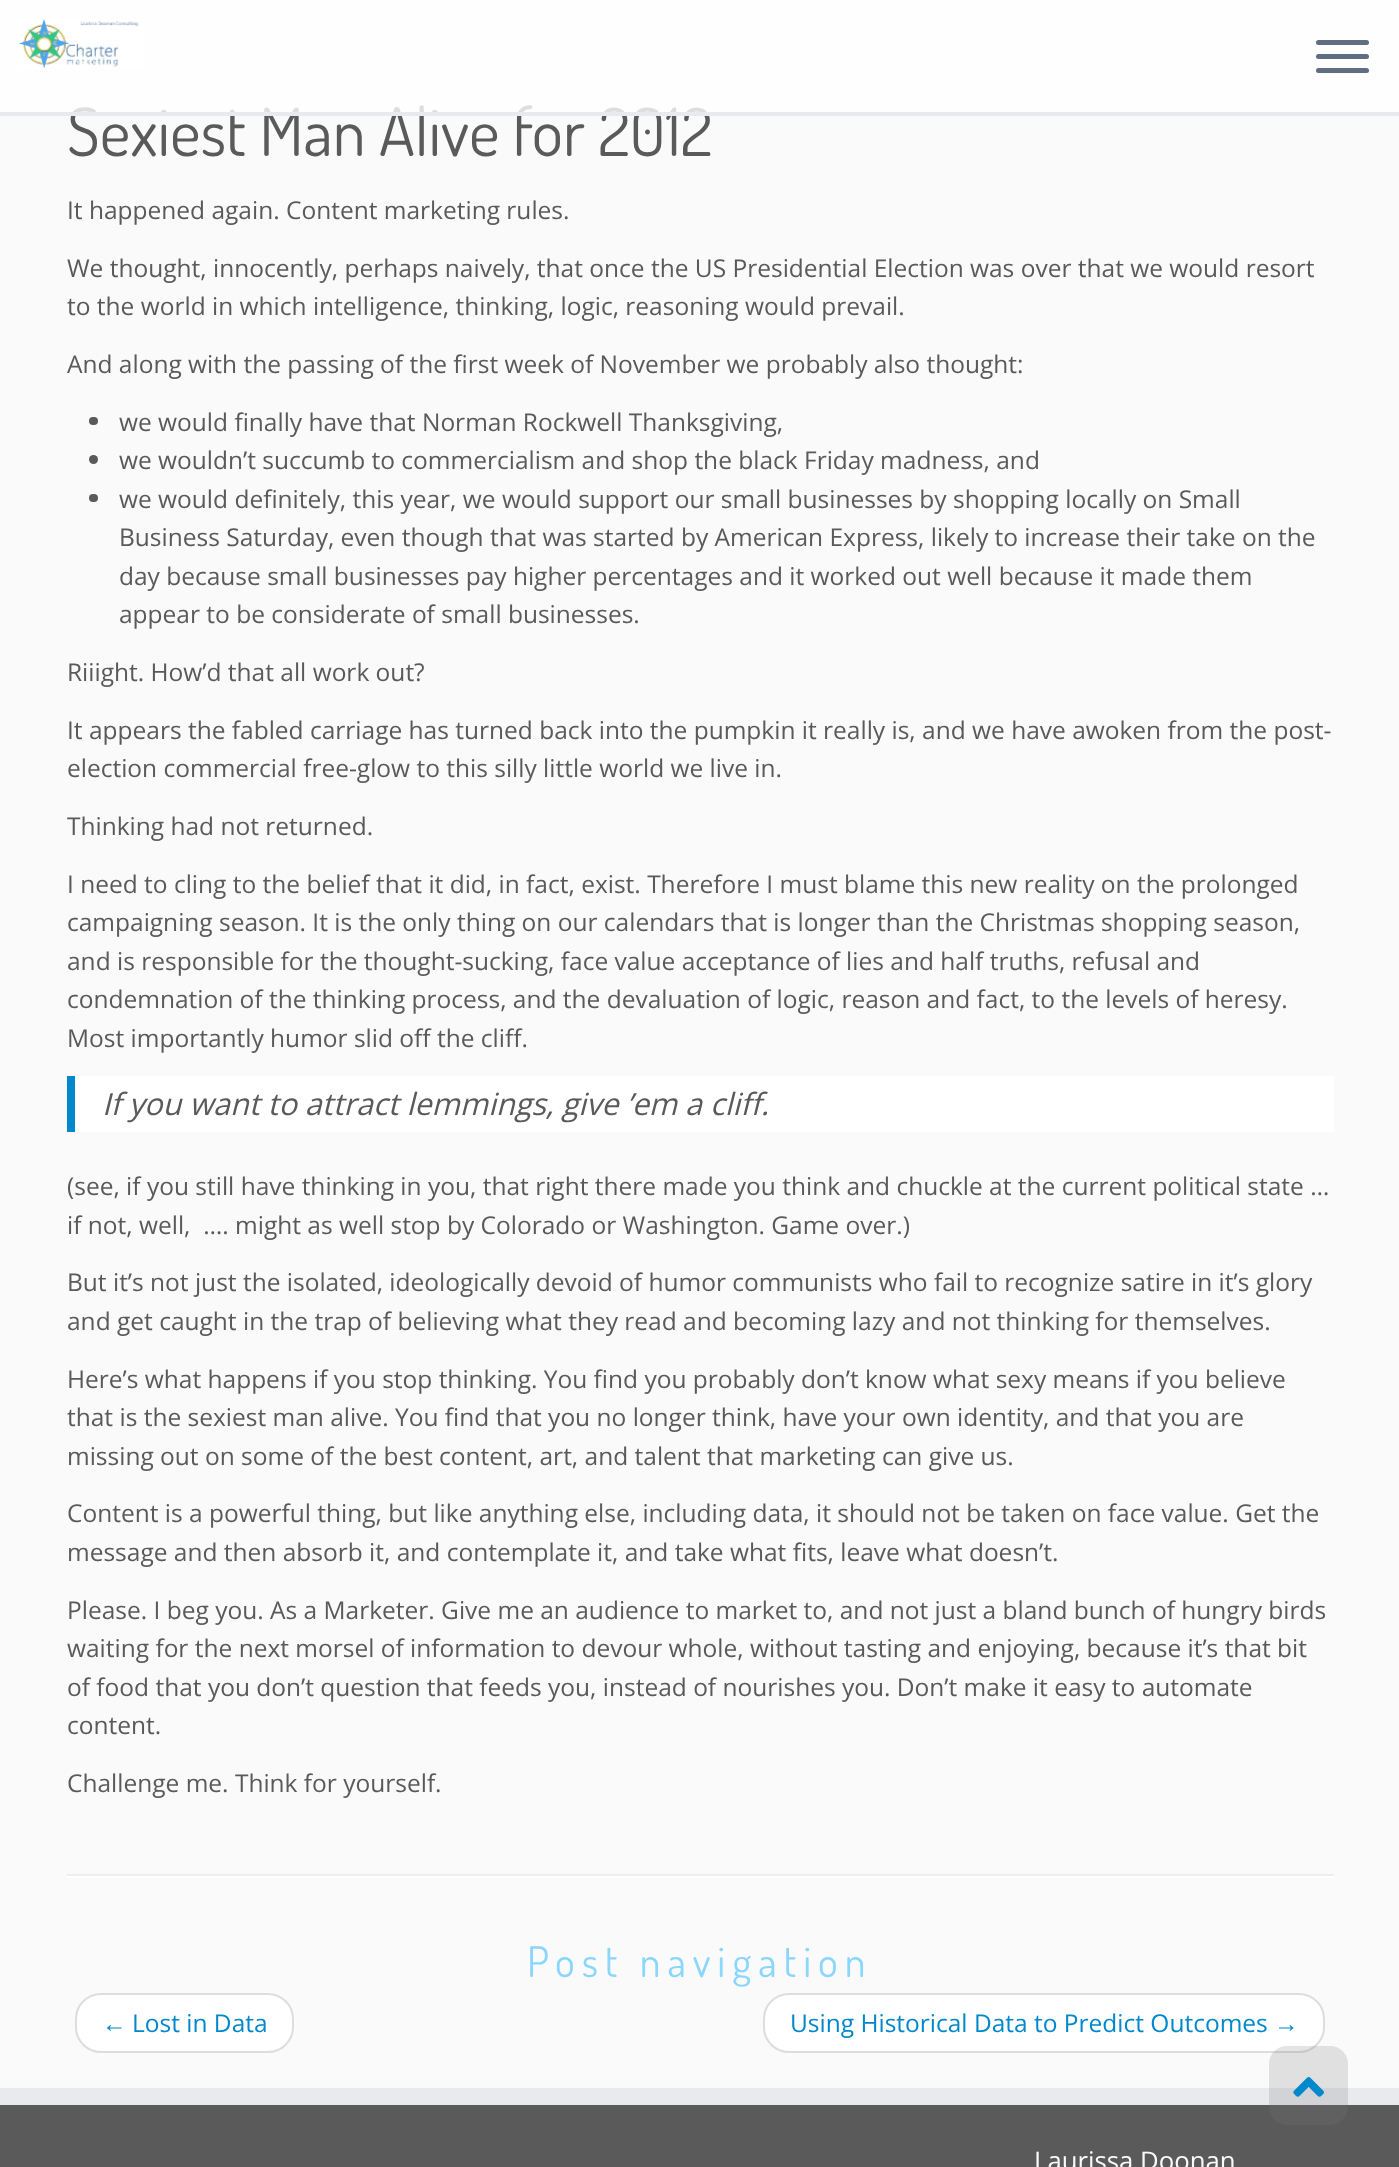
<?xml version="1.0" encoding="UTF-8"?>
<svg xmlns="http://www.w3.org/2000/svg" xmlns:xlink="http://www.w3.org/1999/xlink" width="1399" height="2167">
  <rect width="100%" height="100%" fill="#fafafa" />
  <rect x="89" y="417" width="9" height="8" rx="4" fill="#5a5a5a" />
  <circle cx="93.5" cy="459.5" r="4.5" fill="#5a5a5a" />
  <rect x="89" y="494" width="9" height="8" rx="4" fill="#5a5a5a" />
  <rect x="75" y="1076" width="1259" height="56" fill="#ffffff" />
  <rect x="67" y="1076" width="8" height="56" fill="#0088cc" />
  <rect x="67" y="1874" width="1267" height="2" fill="#eeeeee" />
  <rect x="67" y="1876" width="1267" height="2" fill="#ffffff" />
  <rect x="76" y="1994" width="217" height="58" rx="25" fill="#ffffff" stroke="#dddddd" stroke-width="2" />
  <rect x="764" y="1994" width="560" height="58" rx="25" fill="#ffffff" stroke="#dddddd" stroke-width="2" />
  <rect y="2105" width="1399" height="62" fill="#5a5a5a" />
  <rect y="2088" width="1399" height="17" fill="#e9eaee" />
  <rect x="1269" y="2046" width="79" height="79" rx="18" fill="#777777" fill-opacity="0.2" />
  <image x="1293" y="2077" width="31" height="20" xlink:href="image2.png" />
  <text x="67" y="156" style="font-family: Dosis; font-size: 66.5px; fill: #5a5a5a">Sexiest Man Alive for 2012</text>
  <rect width="1399" height="112" fill="#ffffff" fill-opacity="0.8" />
  <image x="18" y="19" width="126" height="51" xlink:href="image1.png" />
  <rect x="1316" y="68" width="53" height="5" rx="2.5" fill="#5f6f81" />
  <rect x="1316" y="54" width="53" height="5" rx="2.5" fill="#5f6f81" />
  <rect x="1316" y="40" width="53" height="5" rx="2.5" fill="#5f6f81" />
  <rect y="112" width="1399" height="4" fill="#e9eaee" />
  <text x="67" y="219" style="font-family: Open Sans; font-size: 24.5px; fill: #5a5a5a">It happened again. Content marketing rules.</text>
  <text x="67" y="277" style="font-family: Open Sans; font-size: 24.5px; fill: #5a5a5a">We thought, innocently, perhaps naively, that once the US Presidential Election was over that we would resort</text>
  <text x="67" y="315" style="font-family: Open Sans; font-size: 24.5px; fill: #5a5a5a">to the world in which intelligence, thinking, logic, reasoning would prevail.</text>
  <text x="67" y="373" style="font-family: Open Sans; font-size: 24.5px; fill: #5a5a5a">And along with the passing of the first week of November we probably also thought:</text>
  <text x="119" y="431" style="font-family: Open Sans; font-size: 24.5px; fill: #5a5a5a">we would finally have that Norman Rockwell Thanksgiving,</text>
  <text x="119" y="469" style="font-family: Open Sans; font-size: 24.5px; fill: #5a5a5a">we wouldn’t succumb to commercialism and shop the black Friday madness, and</text>
  <text x="119" y="508" style="font-family: Open Sans; font-size: 24.5px; fill: #5a5a5a">we would definitely, this year, we would support our small businesses by shopping locally on Small</text>
  <text x="119" y="546" style="font-family: Open Sans; font-size: 24.5px; fill: #5a5a5a">Business Saturday, even though that was started by American Express, likely to increase their take on the</text>
  <text x="119" y="585" style="font-family: Open Sans; font-size: 24.5px; fill: #5a5a5a">day because small businesses pay higher percentages and it worked out well because it made them</text>
  <text x="119" y="623" style="font-family: Open Sans; font-size: 24.5px; fill: #5a5a5a">appear to be considerate of small businesses.</text>
  <text x="67" y="681" style="font-family: Open Sans; font-size: 24.5px; fill: #5a5a5a">Riiight. How’d that all work out?</text>
  <text x="67" y="739" style="font-family: Open Sans; font-size: 24.5px; fill: #5a5a5a">It appears the fabled carriage has turned back into the pumpkin it really is, and we have awoken from the post-</text>
  <text x="67" y="777" style="font-family: Open Sans; font-size: 24.5px; fill: #5a5a5a">election commercial free-glow to this silly little world we live in.</text>
  <text x="67" y="835" style="font-family: Open Sans; font-size: 24.5px; fill: #5a5a5a">Thinking had not returned.</text>
  <text x="67" y="893" style="font-family: Open Sans; font-size: 24.5px; fill: #5a5a5a">I need to cling to the belief that it did, in fact, exist. Therefore I must blame this new reality on the prolonged</text>
  <text x="67" y="931" style="font-family: Open Sans; font-size: 24.5px; fill: #5a5a5a">campaigning season. It is the only thing on our calendars that is longer than the Christmas shopping season,</text>
  <text x="67" y="970" style="font-family: Open Sans; font-size: 24.5px; fill: #5a5a5a">and is responsible for the thought-sucking, face value acceptance of lies and half truths, refusal and</text>
  <text x="67" y="1008" style="font-family: Open Sans; font-size: 24.5px; fill: #5a5a5a">condemnation of the thinking process, and the devaluation of logic, reason and fact, to the levels of heresy.</text>
  <text x="67" y="1047" style="font-family: Open Sans; font-size: 24.5px; fill: #5a5a5a">Most importantly humor slid off the cliff.</text>
  <text x="102" y="1115" style="font-family: Open Sans; font-size: 30.6px; font-style: italic; fill: #5a5a5a">If you want to attract lemmings, give ’em a cliff.</text>
  <text x="67" y="1195" style="font-family: Open Sans; font-size: 24.5px; fill: #5a5a5a">(see, if you still have thinking in you, that right there made you think and chuckle at the current political state …</text>
  <text x="67" y="1234" style="font-family: Open Sans; font-size: 24.5px; fill: #5a5a5a" xml:space="preserve">if not, well,  …. might as well stop by Colorado or Washington. Game over.)</text>
  <text x="67" y="1291" style="font-family: Open Sans; font-size: 24.5px; fill: #5a5a5a">But it’s not just the isolated, ideologically devoid of humor communists who fail to recognize satire in it’s glory</text>
  <text x="67" y="1330" style="font-family: Open Sans; font-size: 24.5px; fill: #5a5a5a">and get caught in the trap of believing what they read and becoming lazy and not thinking for themselves.</text>
  <text x="67" y="1388" style="font-family: Open Sans; font-size: 24.5px; fill: #5a5a5a">Here’s what happens if you stop thinking. You find you probably don’t know what sexy means if you believe</text>
  <text x="67" y="1426" style="font-family: Open Sans; font-size: 24.5px; fill: #5a5a5a">that is the sexiest man alive. You find that you no longer think, have your own identity, and that you are</text>
  <text x="67" y="1465" style="font-family: Open Sans; font-size: 24.5px; fill: #5a5a5a">missing out on some of the best content, art, and talent that marketing can give us.</text>
  <text x="67" y="1522" style="font-family: Open Sans; font-size: 24.5px; fill: #5a5a5a">Content is a powerful thing, but like anything else, including data, it should not be taken on face value. Get the</text>
  <text x="67" y="1561" style="font-family: Open Sans; font-size: 24.5px; fill: #5a5a5a">message and then absorb it, and contemplate it, and take what fits, leave what doesn’t.</text>
  <text x="67" y="1619" style="font-family: Open Sans; font-size: 24.5px; fill: #5a5a5a">Please. I beg you. As a Marketer. Give me an audience to market to, and not just a bland bunch of hungry birds</text>
  <text x="67" y="1657" style="font-family: Open Sans; font-size: 24.5px; fill: #5a5a5a">waiting for the next morsel of information to devour whole, without tasting and enjoying, because it’s that bit</text>
  <text x="67" y="1696" style="font-family: Open Sans; font-size: 24.5px; fill: #5a5a5a">of food that you don’t question that feeds you, instead of nourishes you. Don’t make it easy to automate</text>
  <text x="67" y="1734" style="font-family: Open Sans; font-size: 24.5px; fill: #5a5a5a">content.</text>
  <text x="67" y="1792" style="font-family: Open Sans; font-size: 24.5px; fill: #5a5a5a">Challenge me. Think for yourself.</text>
  <text x="527" y="1977" style="font-family: Dosis; font-size: 42px; letter-spacing: 7px; fill: #8ad6fd">Post navigation</text>
  <text x="102" y="2032" style="font-family: Liberation Serif; font-size: 24.5px; fill: #0088cc">←</text>
  <text x="132" y="2032" style="font-family: Open Sans; font-size: 24.5px; fill: #0088cc">Lost in Data</text>
  <text x="790" y="2032" style="font-family: Open Sans; font-size: 24.5px; fill: #0088cc">Using Historical Data to Predict Outcomes</text>
  <text x="1274" y="2032" style="font-family: Liberation Serif; font-size: 24.5px; fill: #0088cc">→</text>
  <text x="1034" y="2170" style="font-family: Open Sans; font-size: 25.75px; fill: #fafafa">Laurissa Doonan</text>
</svg>
